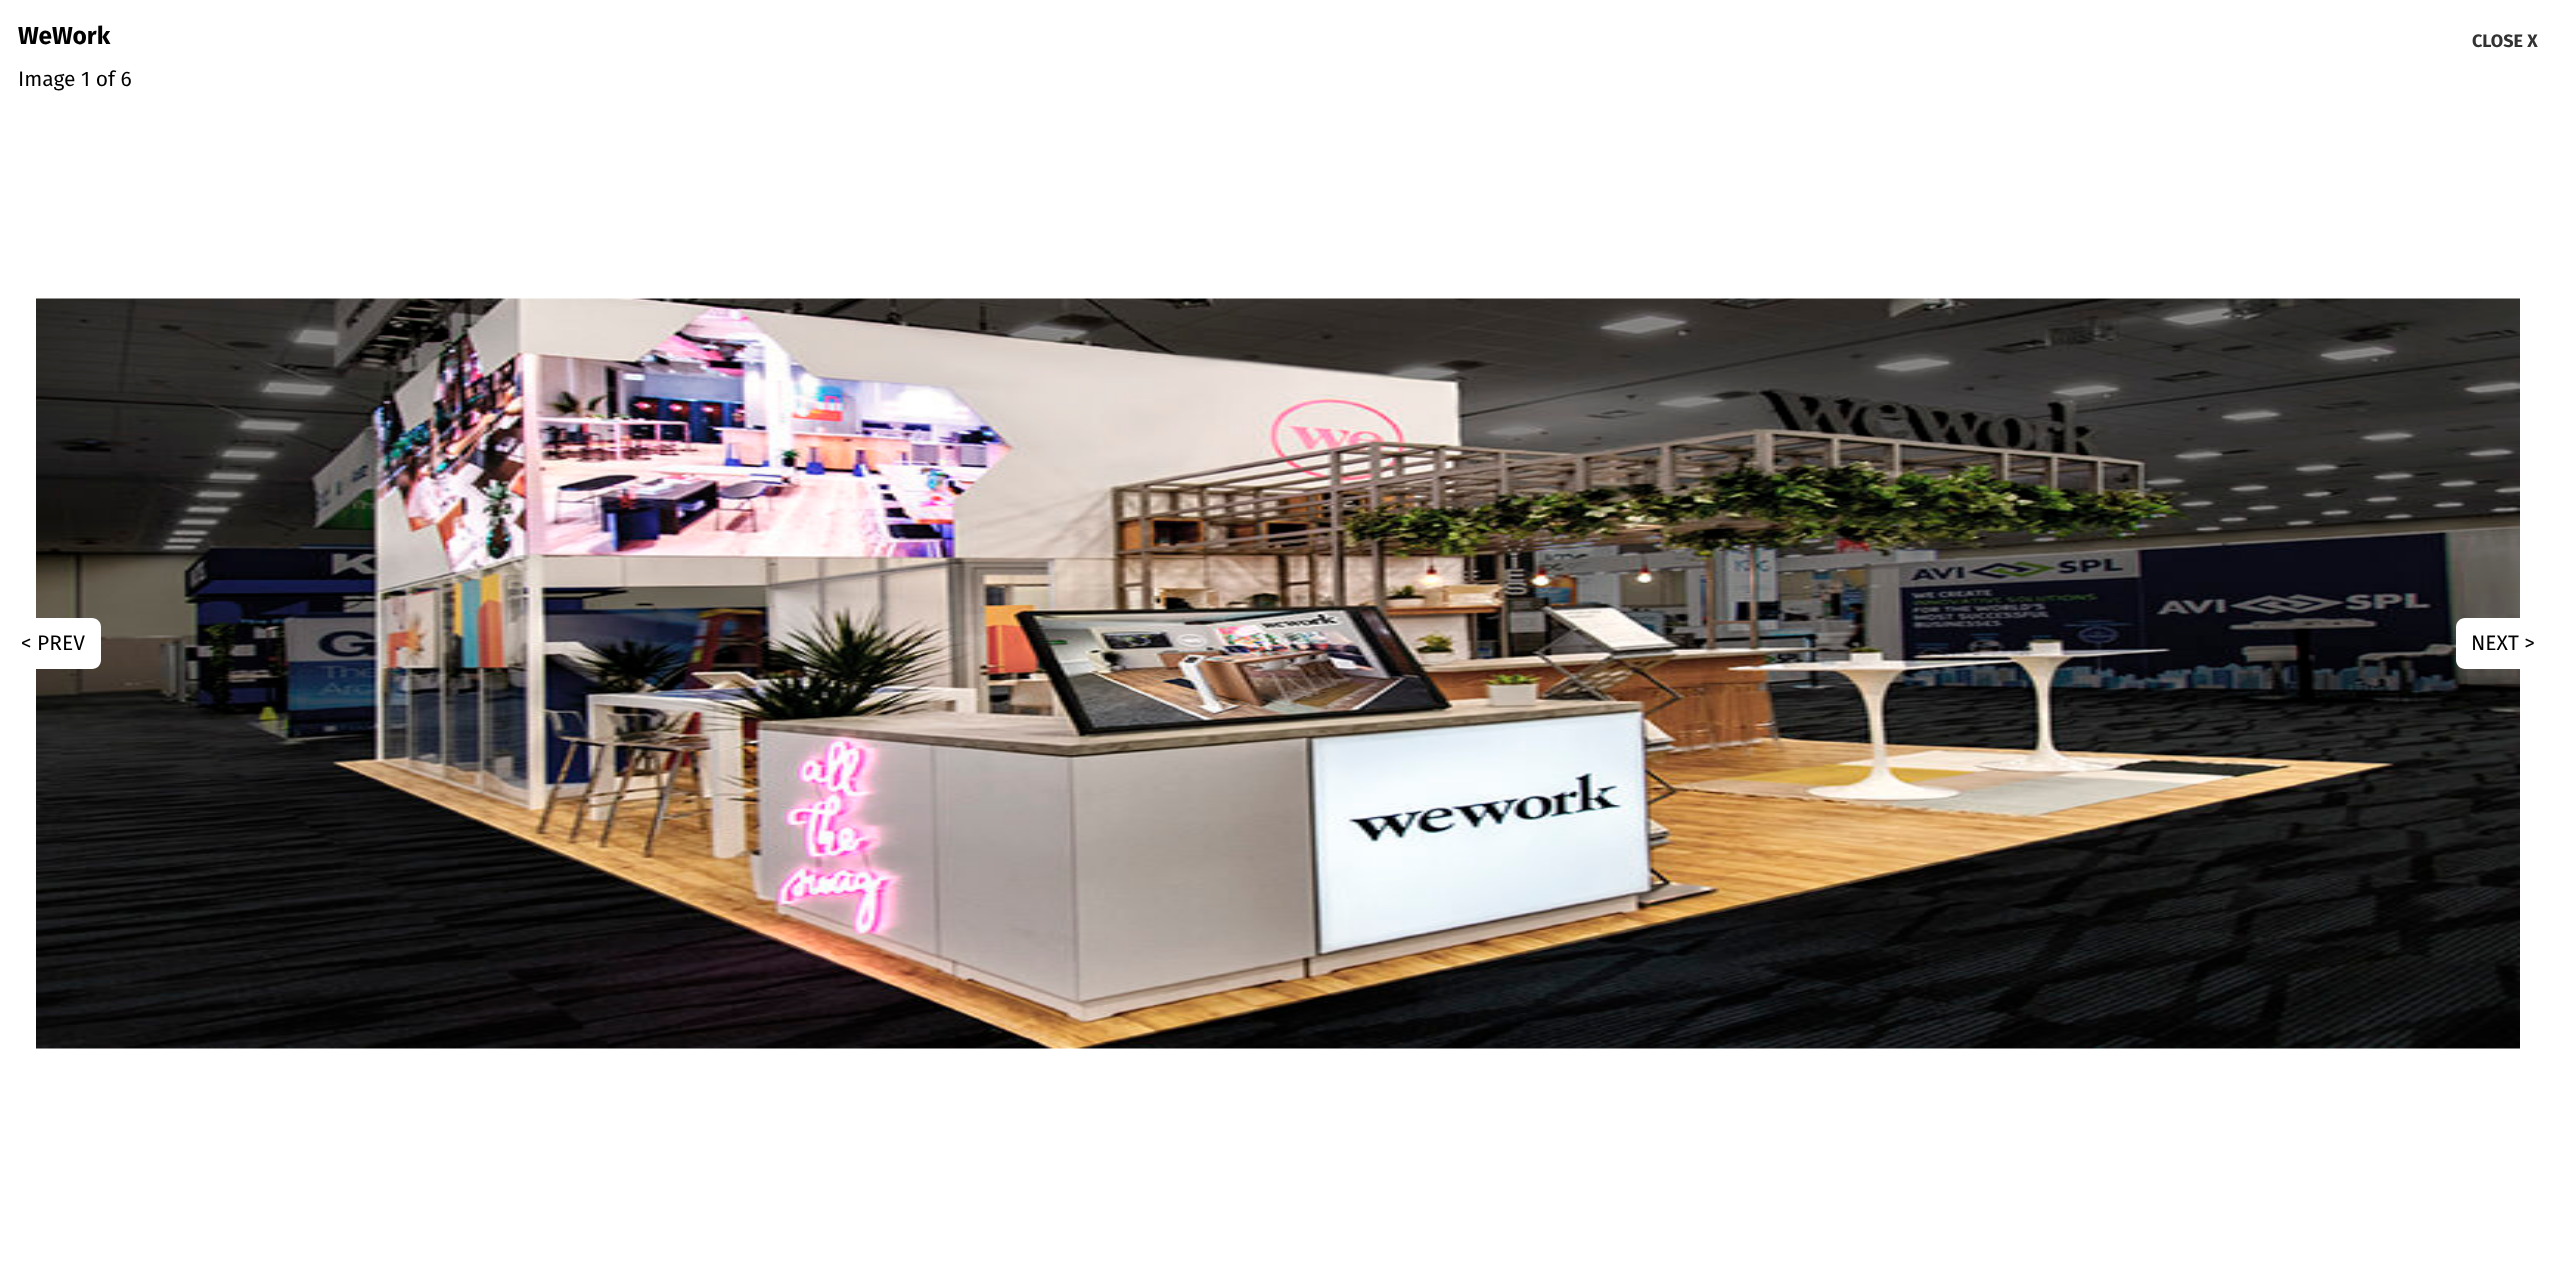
<?xml version="1.0" encoding="UTF-8"?>
<svg xmlns="http://www.w3.org/2000/svg" xmlns:xlink="http://www.w3.org/1999/xlink" width="2555" height="1287">
  <rect width="100%" height="100%" fill="#ffffff" />
  <image x="36" y="298" width="2484" height="751" xlink:href="image1.png" />
  <path d="M 21 618 h 71 c 5 0 9 4 9 9 v 33 c 0 5 -4 9 -9 9 h -71 z" fill="#ffffff" />
  <path d="M 2465 618 h 70 v 51 h -70 c -5 0 -9 -4 -9 -9 v -33 c 0 -5 4 -9 9 -9 z" fill="#ffffff" />
  <text x="18" y="44" style="font-family: Fira Sans; font-size: 24.5px; font-weight: bold; fill: #000000">WeWork</text>
  <text x="18" y="86" style="font-family: Fira Sans; font-size: 21px; fill: #000000">Image 1 of 6</text>
  <text x="2472" y="47" style="font-family: Fira Sans; font-size: 18px; font-weight: bold; fill: #333333">CLOSE X</text>
  <text x="21" y="650" style="font-family: Fira Sans; font-size: 21px; fill: #000000">&lt; PREV</text>
  <text x="2471" y="650" style="font-family: Fira Sans; font-size: 21px; fill: #000000">NEXT &gt;</text>
</svg>
